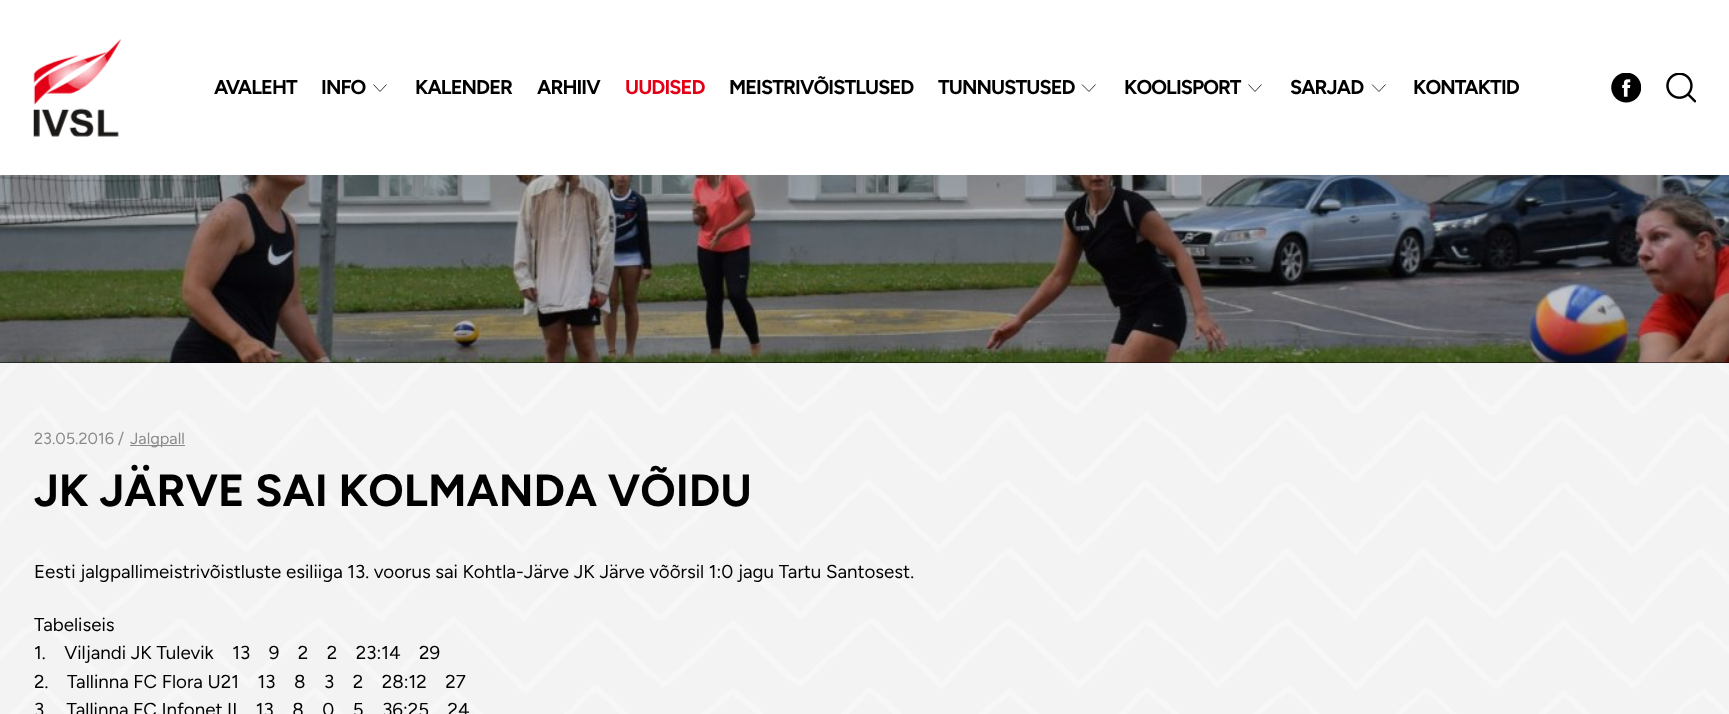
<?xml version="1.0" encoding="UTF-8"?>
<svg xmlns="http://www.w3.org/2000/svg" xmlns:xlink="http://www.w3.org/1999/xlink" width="1729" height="714">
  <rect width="100%" height="100%" fill="#f3f3f3" />
  <rect width="1729" height="175" fill="#ffffff" />
  <image x="33" y="39" width="88" height="98" xlink:href="image1.png" />
  <path d="M 386.5 84.5 l -6.5 7 l -6.5 -7" fill="none" stroke="#1d1e1c" stroke-width="0.9" />
  <path d="M 1095.5 84.5 l -6.5 7 l -7 -7" fill="none" stroke="#1d1e1c" stroke-width="0.9" />
  <path d="M 1261.5 84.5 l -6.5 7 l -6.5 -7" fill="none" stroke="#1d1e1c" stroke-width="0.9" />
  <path d="M 1385.5 84.5 l -6.5 7 l -7 -7" fill="none" stroke="#1d1e1c" stroke-width="0.9" />
  <image x="1611" y="73" width="30" height="30" xlink:href="image2.png" />
  <image x="1666" y="73" width="30" height="30" xlink:href="image3.png" />
  <image x="0" y="363" width="1729" height="351" xlink:href="image4.png" />
  <rect y="362" width="1729" height="1" fill="#000000" />
  <image x="0" y="175" width="1729" height="188" xlink:href="image5.png" />
  <rect y="175" width="1729" height="188" fill="#000000" fill-opacity="0.2" />
  <rect x="130" y="445" width="55" height="1" fill="#8b8b8b" />
  <text x="214" y="94" style="font-family: Figtree; font-size: 20px; font-weight: bold; letter-spacing: -0.9px; fill: #000000">AVALEHT</text>
  <text x="321" y="94" style="font-family: Figtree; font-size: 20px; font-weight: bold; letter-spacing: -0.9px; fill: #000000">INFO</text>
  <text x="415" y="94" style="font-family: Figtree; font-size: 20px; font-weight: bold; letter-spacing: -0.9px; fill: #000000">KALENDER</text>
  <text x="537" y="94" style="font-family: Figtree; font-size: 20px; font-weight: bold; letter-spacing: -0.9px; fill: #000000">ARHIIV</text>
  <text x="625" y="94" style="font-family: Figtree; font-size: 20px; font-weight: bold; letter-spacing: -0.9px; fill: #e30016">UUDISED</text>
  <text x="729" y="94" style="font-family: Figtree; font-size: 20px; font-weight: bold; letter-spacing: -0.9px; fill: #000000">MEISTRIVÕISTLUSED</text>
  <text x="938" y="94" style="font-family: Figtree; font-size: 20px; font-weight: bold; letter-spacing: -0.9px; fill: #000000">TUNNUSTUSED</text>
  <text x="1124" y="94" style="font-family: Figtree; font-size: 20px; font-weight: bold; letter-spacing: -0.9px; fill: #000000">KOOLISPORT</text>
  <text x="1290" y="94" style="font-family: Figtree; font-size: 20px; font-weight: bold; letter-spacing: -0.9px; fill: #000000">SARJAD</text>
  <text x="1413" y="94" style="font-family: Figtree; font-size: 20px; font-weight: bold; letter-spacing: -0.9px; fill: #000000">KONTAKTID</text>
  <text x="34" y="444" style="font-family: Figtree; font-size: 16.25px; fill: #8b8b8b">23.05.2016 /</text>
  <text x="130" y="444" style="font-family: Figtree; font-size: 16.25px; fill: #8b8b8b">Jalgpall</text>
  <text x="34" y="506" style="font-family: Figtree; font-size: 45px; font-weight: bold; fill: #000000">JK JÄRVE SAI KOLMANDA VÕIDU</text>
  <text x="34" y="578" style="font-family: Figtree; font-size: 18.75px; fill: #000000">Eesti jalgpallimeistrivõistluste esiliiga 13. voorus sai Kohtla-Järve JK Järve võõrsil 1:0 jagu Tartu Santosest.</text>
  <text x="34" y="631" style="font-family: Figtree; font-size: 18.75px; fill: #000000">Tabeliseis</text>
  <text x="34" y="659" style="font-family: Figtree; font-size: 18.75px; fill: #000000" xml:space="preserve">1.    Viljandi JK Tulevik    13    9    2    2    23:14    29</text>
  <text x="34" y="688" style="font-family: Figtree; font-size: 18.75px; fill: #000000" xml:space="preserve">2.    Tallinna FC Flora U21    13    8    3    2    28:12    27</text>
  <text x="34" y="716" style="font-family: Figtree; font-size: 18.75px; fill: #000000" xml:space="preserve">3.    Tallinna FC Infonet II    13    8    0    5    36:25    24</text>
</svg>
